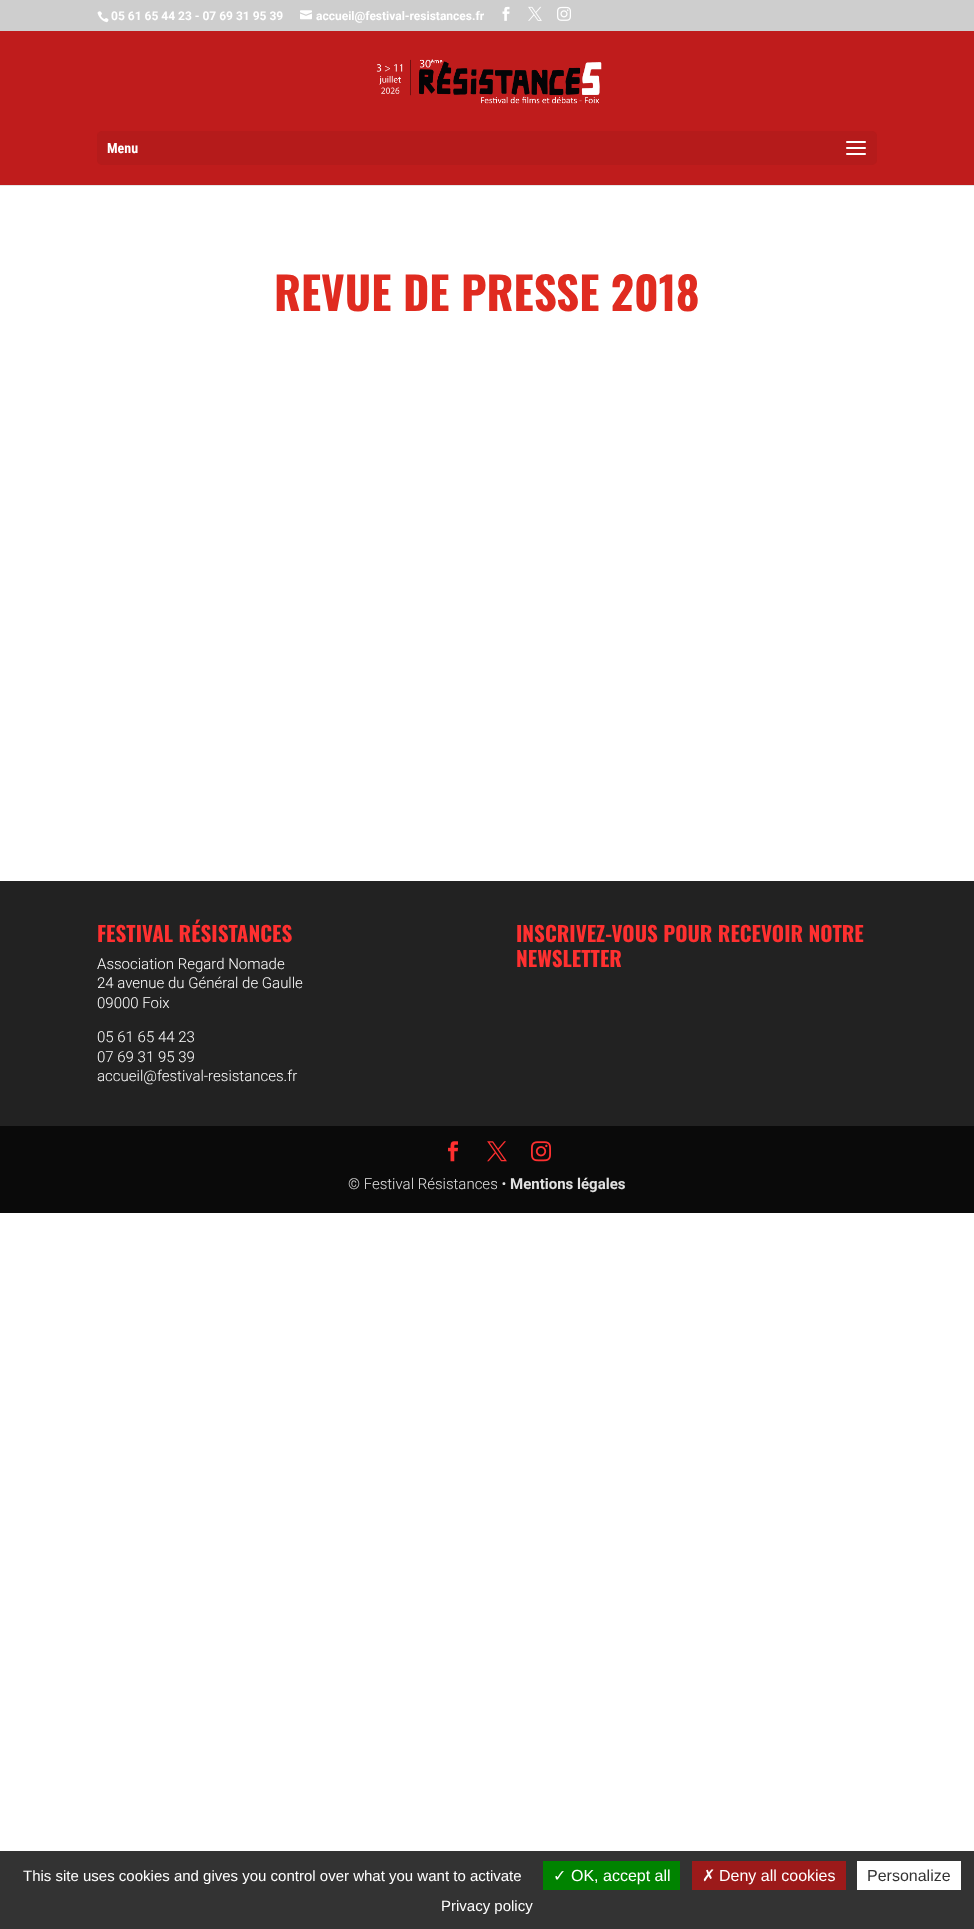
<?xml version="1.0" encoding="UTF-8"?>
<svg xmlns="http://www.w3.org/2000/svg" xmlns:xlink="http://www.w3.org/1999/xlink" width="974" height="1929">
  <rect width="100%" height="100%" fill="#ffffff" />
  <rect width="974" height="31" fill="#cecece" />
  <image x="97" y="11" width="12" height="12" xlink:href="image1.png" />
  <image x="300" y="10" width="12" height="10" xlink:href="image2.png" />
  <image x="502" y="6" width="8" height="15" xlink:href="image3.png" />
  <image x="528" y="6" width="14" height="15" xlink:href="image4.png" />
  <image x="557" y="6" width="14" height="15" xlink:href="image5.png" />
  <rect y="185" width="974" height="1" fill="#e6e6e6" />
  <rect y="31" width="974" height="154" fill="#bf1c1c" />
  <image x="376" y="59" width="226" height="45" xlink:href="image6.png" />
  <rect x="97" y="131" width="780" height="34" rx="5" fill="#b51b1b" />
  <image x="846" y="141" width="20" height="14" xlink:href="image7.png" />
  <rect y="881" width="974" height="245" fill="#222222" />
  <rect y="1126" width="974" height="87" fill="#0a0a0a" />
  <image x="448" y="1141" width="10" height="21" xlink:href="image8.png" />
  <image x="487" y="1141" width="20" height="21" xlink:href="image9.png" />
  <image x="531" y="1141" width="20" height="21" xlink:href="image10.png" />
  <rect y="1851" width="974" height="78" fill="#333333" />
  <rect x="543" y="1861" width="137" height="29" fill="#008300" />
  <rect x="692" y="1861" width="154" height="29" fill="#9c1a1a" />
  <rect x="857" y="1861" width="104" height="29" fill="#ffffff" />
  <text x="111" y="20" style="font-family: Roboto; font-size: 12px; font-weight: bold; fill: #ffffff">05 61 65 44 23 - 07 69 31 95 39</text>
  <text x="316" y="20" style="font-family: Roboto; font-size: 12px; font-weight: bold; fill: #ffffff">accueil@festival-resistances.fr</text>
  <text x="107" y="153" style="font-family: Roboto Condensed; font-size: 14px; font-weight: bold; fill: #ffffff">Menu</text>
  <text x="274" y="311" style="font-family: Oswald; font-size: 45px; font-weight: bold; fill: #e02b20">REVUE DE PRESSE 2018</text>
  <text x="97" y="942" style="font-family: Oswald; font-size: 21px; font-weight: bold; fill: #ff3030">FESTIVAL RÉSISTANCES</text>
  <text x="97" y="969" style="font-family: Roboto; font-size: 15px; font-weight: 300; fill: #ffffff">Association Regard Nomade</text>
  <text x="97" y="988" style="font-family: Roboto; font-size: 15px; font-weight: 300; fill: #ffffff">24 avenue du Général de Gaulle</text>
  <text x="97" y="1008" style="font-family: Roboto; font-size: 15px; font-weight: 300; fill: #ffffff">09000 Foix</text>
  <text x="97" y="1042" style="font-family: Roboto; font-size: 15px; font-weight: 300; fill: #ffffff">05 61 65 44 23</text>
  <text x="97" y="1062" style="font-family: Roboto; font-size: 15px; font-weight: 300; fill: #ffffff">07 69 31 95 39</text>
  <text x="97" y="1081" style="font-family: Roboto; font-size: 15px; font-weight: 300; fill: #ffffff">accueil@festival-resistances.fr</text>
  <text x="516" y="942" style="font-family: Oswald; font-size: 21px; font-weight: bold; fill: #ff3030">INSCRIVEZ-VOUS POUR RECEVOIR NOTRE</text>
  <text x="516" y="967" style="font-family: Oswald; font-size: 21px; font-weight: bold; fill: #ff3030">NEWSLETTER</text>
  <text x="348" y="1189" style="font-family: Roboto; font-size: 15px; font-weight: 300; fill: #e2e2e2">© Festival Résistances •</text>
  <text x="510" y="1189" style="font-family: Roboto; font-size: 15px; font-weight: bold; fill: #e2e2e2">Mentions légales</text>
  <text x="23" y="1881" style="font-family: Liberation Sans; font-size: 15px; fill: #ffffff">This site uses cookies and gives you control over what you want to activate</text>
  <text x="553" y="1881" style="font-family: DejaVu Sans; font-size: 16px; fill: #ffffff">✓</text>
  <text x="571" y="1881" style="font-family: Liberation Sans; font-size: 16px; fill: #ffffff">OK, accept all</text>
  <text x="702" y="1881" style="font-family: DejaVu Sans; font-size: 16px; fill: #ffffff">✗</text>
  <text x="719" y="1881" style="font-family: Liberation Sans; font-size: 16px; fill: #ffffff">Deny all cookies</text>
  <text x="867" y="1881" style="font-family: Liberation Sans; font-size: 16px; fill: #333333">Personalize</text>
  <text x="441" y="1911" style="font-family: Liberation Sans; font-size: 15px; fill: #ffffff">Privacy policy</text>
</svg>
